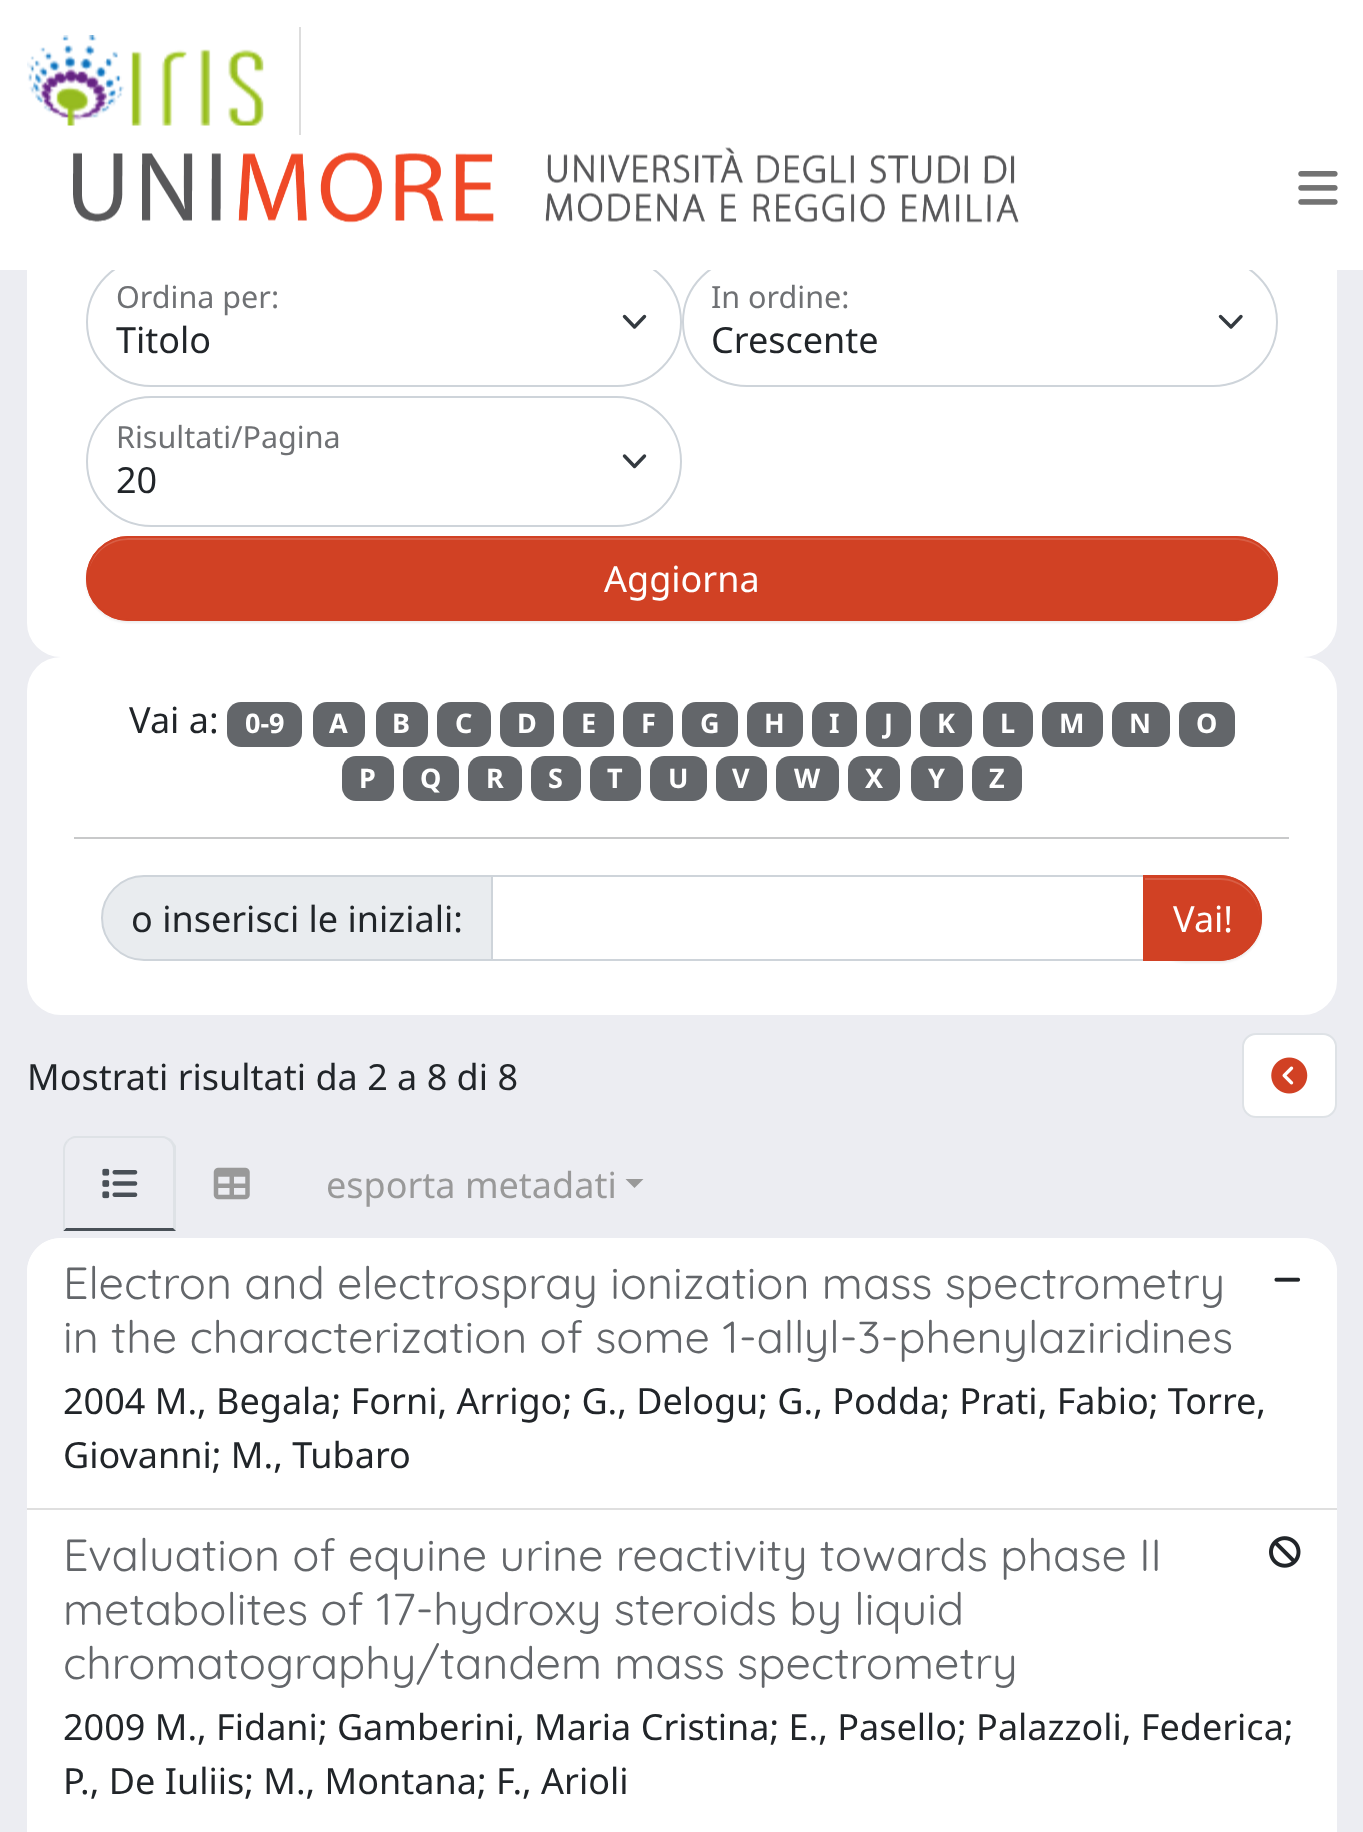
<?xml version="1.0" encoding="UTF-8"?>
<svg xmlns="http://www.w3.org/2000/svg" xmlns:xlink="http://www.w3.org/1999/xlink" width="1363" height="1832">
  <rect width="100%" height="100%" fill="#ecedf2" />
  <rect x="27" y="113" width="1310" height="544" rx="34" fill="#ffffff" />
  <path d="M 624.5 316.5 l 10 10.5 l 10 -10.5" fill="none" stroke="#343a40" stroke-width="3.4" stroke-linecap="round" stroke-linejoin="round" />
  <rect x="87" y="258" width="594" height="128" rx="64" fill="none" stroke="#ced4da" stroke-width="2" />
  <path d="M 1220.5 316.5 l 10.5 10.5 l 10 -10.5" fill="none" stroke="#343a40" stroke-width="3.4" stroke-linecap="round" stroke-linejoin="round" />
  <rect x="683" y="258" width="594" height="128" rx="64" fill="none" stroke="#ced4da" stroke-width="2" />
  <rect width="1363" height="270" fill="#ffffff" />
  <rect x="299" y="27" width="2" height="108" fill="#dddddd" />
  <image x="27" y="35" width="237" height="91" xlink:href="image1.png" />
  <image x="73" y="147" width="946" height="76" xlink:href="image2.png" />
  <image x="1298" y="171" width="40" height="34" xlink:href="image3.png" />
  <path d="M 624.5 456 l 10 10.5 l 10 -10.5" fill="none" stroke="#343a40" stroke-width="3.4" stroke-linecap="round" stroke-linejoin="round" />
  <rect x="87" y="397" width="594" height="129" rx="64.5" fill="none" stroke="#ced4da" stroke-width="2" />
  <rect x="86" y="538" width="1192" height="85" rx="42.5" fill="#000000" fill-opacity="0.07" filter="blur(1px)" />
  <rect x="86" y="536" width="1192" height="85" rx="42.5" fill="#d14124" />
  <path d="M 128 540 h 1107 c 23 0 41 18 41 39 v -1 c 0 -22 -18 -40 -40 -40 h -1108 c -22 0 -40 18 -40 40 v 1 c 0 -21 18 -39 40 -39 z" fill="#d85e45" />
  <rect x="87" y="537" width="1190" height="83" rx="41.5" fill="none" stroke="#d14124" stroke-width="2" />
  <rect x="27" y="657" width="1310" height="358" rx="34" fill="#ffffff" />
  <rect x="227" y="702" width="75" height="45" rx="14" fill="#63666a" />
  <rect x="313" y="702" width="52" height="45" rx="14" fill="#63666a" />
  <rect x="376" y="702" width="52" height="45" rx="14" fill="#63666a" />
  <rect x="437" y="702" width="54" height="45" rx="14" fill="#63666a" />
  <rect x="500" y="702" width="54" height="45" rx="14" fill="#63666a" />
  <rect x="563" y="702" width="51" height="45" rx="14" fill="#63666a" />
  <rect x="623" y="702" width="50" height="45" rx="14" fill="#63666a" />
  <rect x="682" y="702" width="56" height="45" rx="14" fill="#63666a" />
  <rect x="747" y="702" width="56" height="45" rx="14" fill="#63666a" />
  <rect x="812" y="702" width="45" height="45" rx="14" fill="#63666a" />
  <rect x="866" y="702" width="45" height="45" rx="14" fill="#63666a" />
  <rect x="920" y="702" width="52" height="45" rx="14" fill="#63666a" />
  <rect x="983" y="702" width="50" height="45" rx="14" fill="#63666a" />
  <rect x="1042" y="702" width="61" height="45" rx="14" fill="#63666a" />
  <rect x="1112" y="702" width="58" height="45" rx="14" fill="#63666a" />
  <rect x="1179" y="702" width="56" height="45" rx="14" fill="#63666a" />
  <rect x="342" y="756" width="52" height="45" rx="14" fill="#63666a" />
  <rect x="403" y="756" width="56" height="45" rx="14" fill="#63666a" />
  <rect x="468" y="756" width="54" height="45" rx="14" fill="#63666a" />
  <rect x="531" y="756" width="50" height="45" rx="14" fill="#63666a" />
  <rect x="590" y="756" width="51" height="45" rx="14" fill="#63666a" />
  <rect x="650" y="756" width="57" height="45" rx="14" fill="#63666a" />
  <rect x="716" y="756" width="51" height="45" rx="14" fill="#63666a" />
  <rect x="776" y="756" width="63" height="45" rx="14" fill="#63666a" />
  <rect x="848" y="756" width="52" height="45" rx="14" fill="#63666a" />
  <rect x="911" y="756" width="52" height="45" rx="14" fill="#63666a" />
  <rect x="972" y="756" width="50" height="45" rx="14" fill="#63666a" />
  <rect x="74" y="837" width="1215" height="2" fill="#c8c9ca" />
  <path d="M 144 876 h 348 v 84 h -348 c -23 0 -42 -19 -42 -42 c 0 -23 19 -42 42 -42 z" fill="#e9ecef" stroke="#ced4da" stroke-width="2" />
  <rect x="492" y="876" width="652" height="84" fill="none" stroke="#ced4da" stroke-width="2" />
  <rect x="1143" y="878" width="119" height="85" rx="42.5" fill="#000000" fill-opacity="0.07" filter="blur(1px)" />
  <path d="M 1143 875 h 76 c 23.5 0 43 19.5 43 43 c 0 23.5 -19.5 43 -43 43 h -76 z" fill="#d14124" />
  <path d="M 1145 880 h 75 c 22 0 40 18 40 39 v -1 c 0 -22 -18 -40 -40 -40 h -75 z" fill="#d85e45" />
  <path d="M 1144 876 h 75 c 23 0 42 19 42 42 c 0 23 -19 42 -42 42 h -75 z" fill="none" stroke="#d14124" stroke-width="2" />
  <rect x="1243" y="1034" width="93" height="83" rx="13" fill="#ffffff" stroke="#dee2e6" stroke-width="2" />
  <image x="1271" y="1057" width="37" height="37" xlink:href="image4.png" />
  <path d="M 76 1138 c -3 0 -6 1 -8 4 l -1 -2 c 2 -2 4 -3 7 -4 h 90 c 3 1 6 2 8 4 l -2 2 c -2 -2 -5 -4 -8 -4 z" fill="#dee2e6" />
  <path d="M 172 1140 c 1 2 3 4 4 6 v 85 l -3 -3 v -78 c 0 -3 -1 -6 -3 -8 z" fill="#dee2e6" />
  <path d="M 176 1231 l -3 -3 h -107 l -3 3 z" fill="#495057" />
  <path d="M 63 1231 l 3 -3 h -1 v -78 c 0 -3 1 -6 3 -8 l -1 -2 c -3 3 -4 6 -4 10 z" fill="#dee2e6" />
  <image x="102" y="1168" width="36" height="31" xlink:href="image5.png" />
  <image x="213" y="1167" width="37" height="33" xlink:href="image6.png" />
  <path d="M 625.5 1179 h 18 l -9 9 z" fill="#999999" />
  <rect x="27" y="1238" width="1310" height="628" rx="34" fill="#ffffff" />
  <path d="M 61 1238 h 1242 c 19 0 34 15 34 34 v 238 h -1310 v -238 c 0 -19 15 -34 34 -34 z" fill="#ffffff" />
  <rect x="27" y="1508" width="1310" height="2" fill="#dfdfdf" />
  <image x="1274" y="1277" width="27" height="5" xlink:href="image7.png" />
  <image x="1269" y="1536" width="32" height="32" xlink:href="image8.png" />
  <text x="116" y="308" style="font-family: Noto Sans; font-size: 30.5px; fill: #6f7174">Ordina per:</text>
  <text x="116" y="353" style="font-family: Noto Sans; font-size: 36px; fill: #212529">Titolo</text>
  <text x="711" y="308" style="font-family: Noto Sans; font-size: 30.5px; fill: #6f7174">In ordine:</text>
  <text x="711" y="353" style="font-family: Noto Sans; font-size: 36px; fill: #212529">Crescente</text>
  <text x="116" y="448" style="font-family: Noto Sans; font-size: 30.5px; fill: #6f7174">Risultati/Pagina</text>
  <text x="116" y="493" style="font-family: Noto Sans; font-size: 36px; fill: #212529">20</text>
  <text x="604" y="592" style="font-family: Noto Sans; font-size: 36px; fill: #ffffff">Aggiorna</text>
  <text x="129" y="733" style="font-family: Noto Sans; font-size: 36px; fill: #212529">Vai a:</text>
  <text x="245" y="733" style="font-family: Noto Sans; font-size: 27px; font-weight: bold; fill: #ffffff">0-9</text>
  <text x="329" y="733" style="font-family: Noto Sans; font-size: 27px; font-weight: bold; fill: #ffffff">A</text>
  <text x="392" y="733" style="font-family: Noto Sans; font-size: 27px; font-weight: bold; fill: #ffffff">B</text>
  <text x="455" y="733" style="font-family: Noto Sans; font-size: 27px; font-weight: bold; fill: #ffffff">C</text>
  <text x="517" y="733" style="font-family: Noto Sans; font-size: 27px; font-weight: bold; fill: #ffffff">D</text>
  <text x="581" y="733" style="font-family: Noto Sans; font-size: 27px; font-weight: bold; fill: #ffffff">E</text>
  <text x="641" y="733" style="font-family: Noto Sans; font-size: 27px; font-weight: bold; fill: #ffffff">F</text>
  <text x="700" y="733" style="font-family: Noto Sans; font-size: 27px; font-weight: bold; fill: #ffffff">G</text>
  <text x="764" y="733" style="font-family: Noto Sans; font-size: 27px; font-weight: bold; fill: #ffffff">H</text>
  <text x="829" y="733" style="font-family: Noto Sans; font-size: 27px; font-weight: bold; fill: #ffffff">I</text>
  <text x="884" y="733" style="font-family: Noto Sans; font-size: 27px; font-weight: bold; fill: #ffffff">J</text>
  <text x="937" y="733" style="font-family: Noto Sans; font-size: 27px; font-weight: bold; fill: #ffffff">K</text>
  <text x="1000" y="733" style="font-family: Noto Sans; font-size: 27px; font-weight: bold; fill: #ffffff">L</text>
  <text x="1059" y="733" style="font-family: Noto Sans; font-size: 27px; font-weight: bold; fill: #ffffff">M</text>
  <text x="1129" y="733" style="font-family: Noto Sans; font-size: 27px; font-weight: bold; fill: #ffffff">N</text>
  <text x="1196" y="733" style="font-family: Noto Sans; font-size: 27px; font-weight: bold; fill: #ffffff">O</text>
  <text x="359" y="788" style="font-family: Noto Sans; font-size: 27px; font-weight: bold; fill: #ffffff">P</text>
  <text x="420" y="788" style="font-family: Noto Sans; font-size: 27px; font-weight: bold; fill: #ffffff">Q</text>
  <text x="486" y="788" style="font-family: Noto Sans; font-size: 27px; font-weight: bold; fill: #ffffff">R</text>
  <text x="548" y="788" style="font-family: Noto Sans; font-size: 27px; font-weight: bold; fill: #ffffff">S</text>
  <text x="607" y="788" style="font-family: Noto Sans; font-size: 27px; font-weight: bold; fill: #ffffff">T</text>
  <text x="668" y="788" style="font-family: Noto Sans; font-size: 27px; font-weight: bold; fill: #ffffff">U</text>
  <text x="732" y="788" style="font-family: Noto Sans; font-size: 27px; font-weight: bold; fill: #ffffff">V</text>
  <text x="794" y="788" style="font-family: Noto Sans; font-size: 27px; font-weight: bold; fill: #ffffff">W</text>
  <text x="865" y="788" style="font-family: Noto Sans; font-size: 27px; font-weight: bold; fill: #ffffff">X</text>
  <text x="928" y="788" style="font-family: Noto Sans; font-size: 27px; font-weight: bold; fill: #ffffff">Y</text>
  <text x="989" y="788" style="font-family: Noto Sans; font-size: 27px; font-weight: bold; fill: #ffffff">Z</text>
  <text x="131" y="932" style="font-family: Noto Sans; font-size: 36px; fill: #212529">o inserisci le iniziali:</text>
  <text x="1173" y="932" style="font-family: Noto Sans; font-size: 36px; fill: #ffffff">Vai!</text>
  <text x="27" y="1090" style="font-family: Noto Sans; font-size: 36px; fill: #212529">Mostrati risultati da 2 a 8 di 8</text>
  <text x="326" y="1198" style="font-family: Noto Sans; font-size: 36px; fill: #999999">esporta metadati</text>
  <text x="63" y="1299" style="font-family: Quicksand; font-size: 45px; font-weight: 300; fill: #63666a">Electron and electrospray ionization mass spectrometry</text>
  <text x="63" y="1353" style="font-family: Quicksand; font-size: 45px; font-weight: 300; fill: #63666a">in the characterization of some 1-allyl-3-phenylaziridines</text>
  <text x="63" y="1414" style="font-family: Noto Sans; font-size: 36px; fill: #212529">2004 M., Begala; Forni, Arrigo; G., Delogu; G., Podda; Prati, Fabio; Torre,</text>
  <text x="63" y="1468" style="font-family: Noto Sans; font-size: 36px; fill: #212529">Giovanni; M., Tubaro</text>
  <text x="63" y="1571" style="font-family: Quicksand; font-size: 45px; font-weight: 300; fill: #63666a">Evaluation of equine urine reactivity towards phase II</text>
  <text x="63" y="1625" style="font-family: Quicksand; font-size: 45px; font-weight: 300; fill: #63666a">metabolites of 17-hydroxy steroids by liquid</text>
  <text x="63" y="1679" style="font-family: Quicksand; font-size: 45px; font-weight: 300; fill: #63666a">chromatography/tandem mass spectrometry</text>
  <text x="63" y="1740" style="font-family: Noto Sans; font-size: 36px; fill: #212529">2009 M., Fidani; Gamberini, Maria Cristina; E., Pasello; Palazzoli, Federica;</text>
  <text x="63" y="1794" style="font-family: Noto Sans; font-size: 36px; fill: #212529">P., De Iuliis; M., Montana; F., Arioli</text>
</svg>
